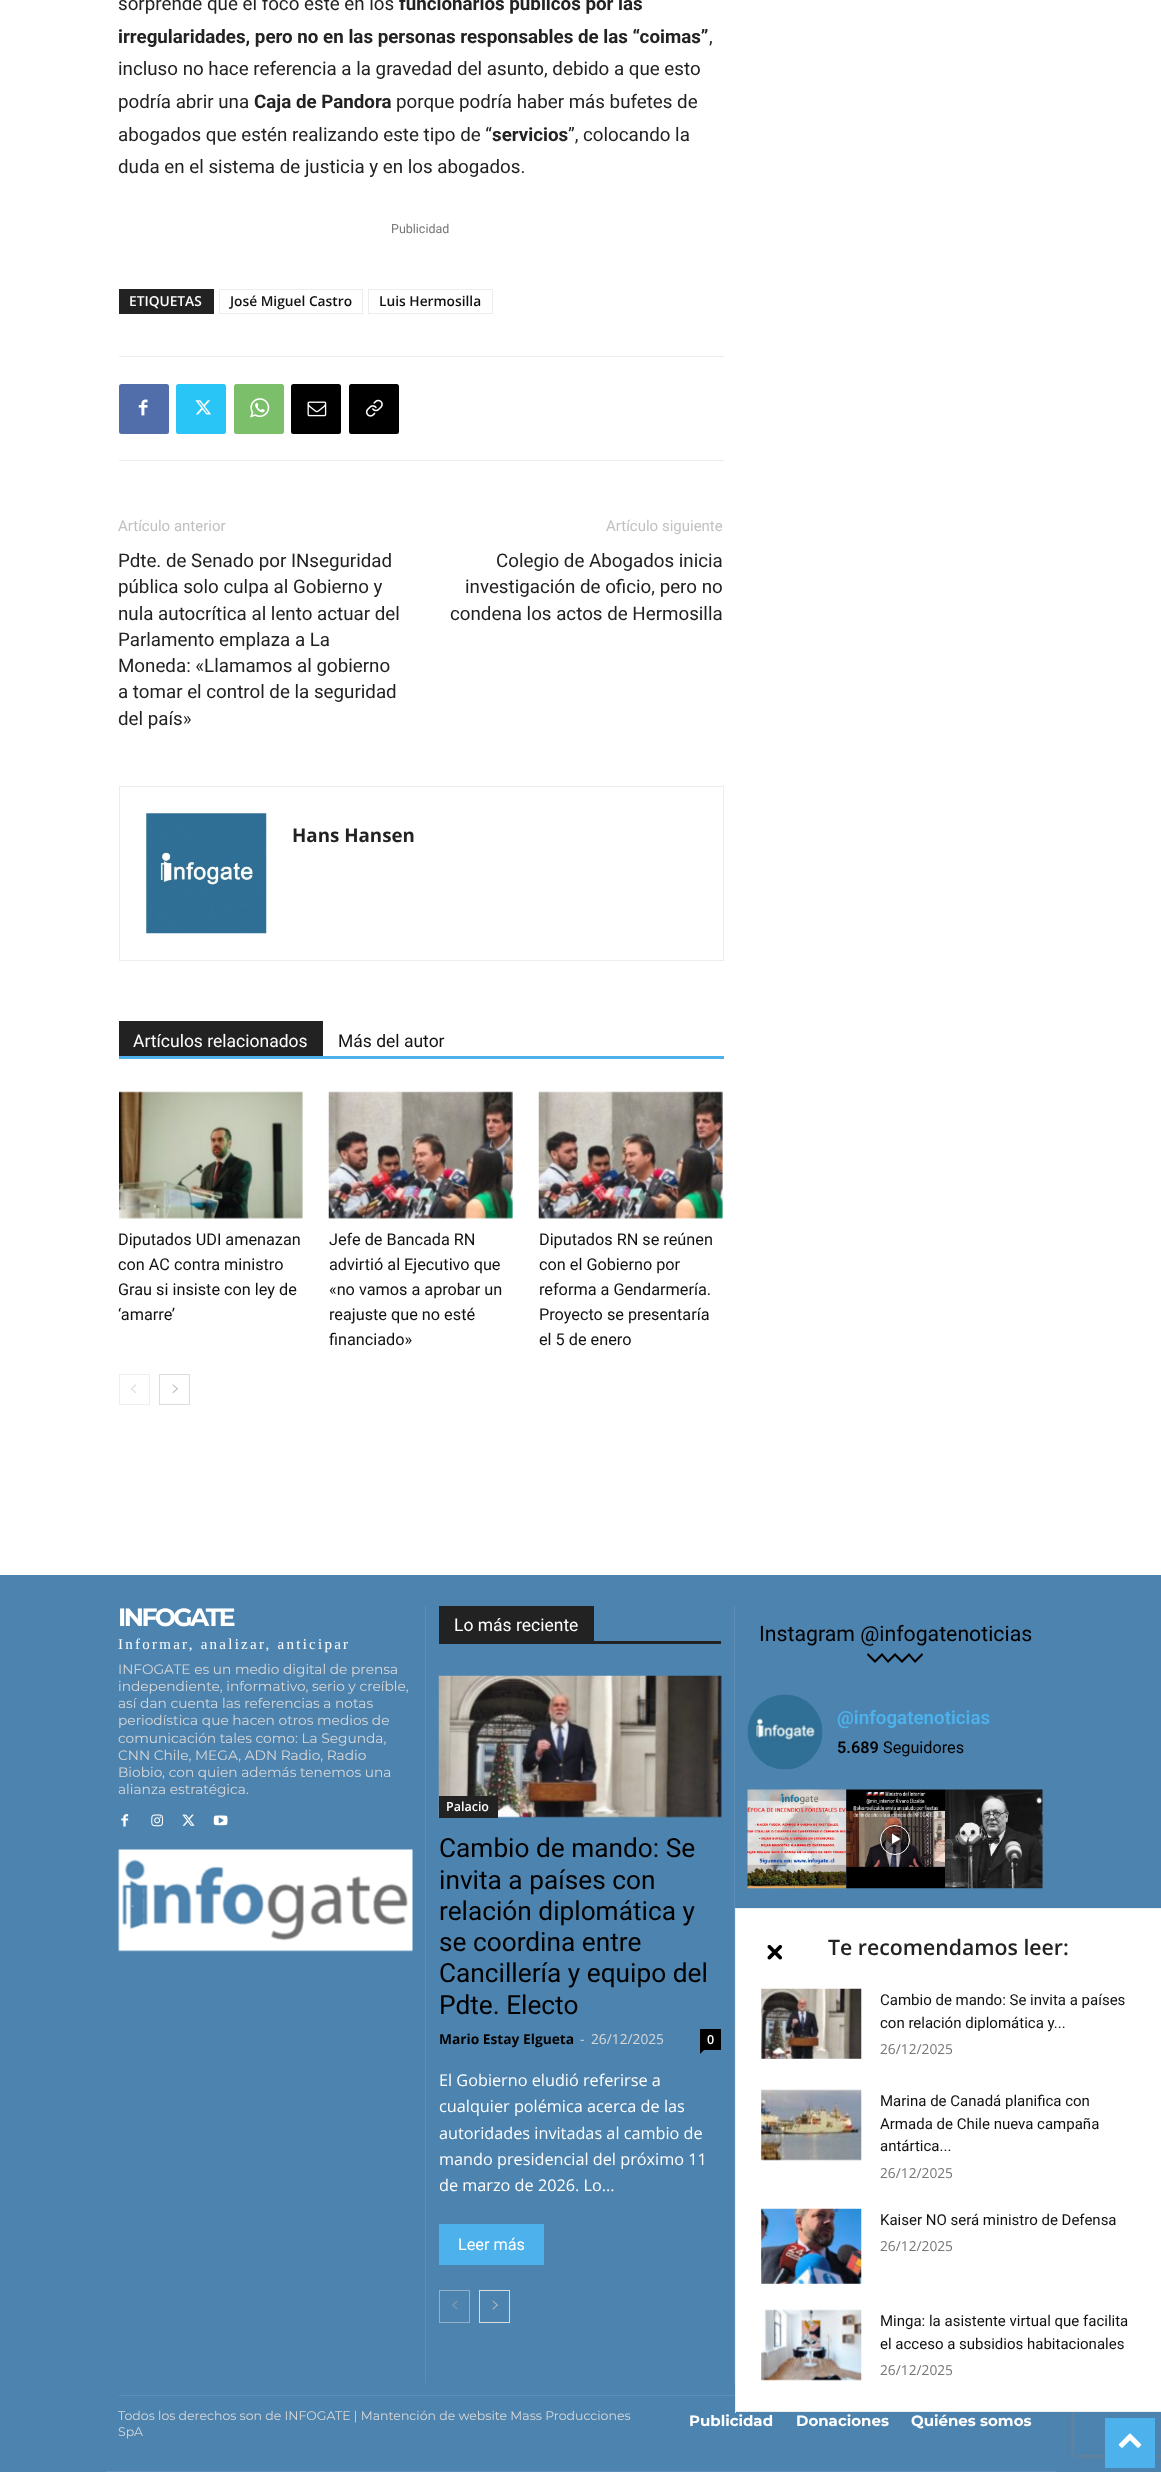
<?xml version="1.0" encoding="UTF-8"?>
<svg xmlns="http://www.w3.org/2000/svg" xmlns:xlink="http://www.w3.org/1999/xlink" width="1161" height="2472">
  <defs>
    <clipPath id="clip1"><path d="M 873 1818 h 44 v 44 h -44 z m 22 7 c 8.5 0 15 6.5 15 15 c 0 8.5 -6.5 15 -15 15 c -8.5 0 -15 -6.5 -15 -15 c 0 -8.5 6.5 -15 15 -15 z" clip-rule="evenodd" /></clipPath>
    <clipPath id="clip2"><path d="M 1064 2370 h 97 v 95 h -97 z m 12.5 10 h 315 c 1.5 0 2.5 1 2.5 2.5 v 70 c 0 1.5 -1 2.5 -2.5 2.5 h -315 c -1.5 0 -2.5 -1 -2.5 -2.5 v -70 c 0 -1.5 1 -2.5 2.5 -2.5 z" clip-rule="evenodd" /></clipPath>
  </defs>
  <rect width="100%" height="100%" fill="#ffffff" />
  <rect x="119" y="289" width="95" height="25" fill="#222222" />
  <rect x="219.5" y="289.5" width="143" height="24" fill="none" stroke="#ededed" />
  <rect x="368.5" y="289.5" width="124" height="24" fill="none" stroke="#ededed" />
  <rect x="119" y="356" width="605" height="1" fill="#ededed" />
  <rect x="119" y="460" width="605" height="1" fill="#ededed" />
  <rect x="119" y="384" width="50" height="50" rx="2.5" fill="#516eab" />
  <image x="138" y="399" width="10" height="17" xlink:href="image1.png" />
  <rect x="176" y="384" width="50" height="50" rx="2.5" fill="#29c5f6" />
  <image x="195" y="400" width="16" height="15" xlink:href="image2.png" />
  <rect x="234" y="384" width="50" height="50" rx="2.5" fill="#7bbf6a" />
  <image x="250" y="398" width="20" height="20" xlink:href="image3.png" />
  <rect x="291" y="384" width="50" height="50" rx="2.5" fill="#000000" />
  <image x="307" y="401" width="20" height="16" xlink:href="image4.png" />
  <rect x="349" y="384" width="50" height="50" rx="2.5" fill="#000000" />
  <image x="365" y="399" width="18" height="18" xlink:href="image5.png" />
  <rect x="119.5" y="786.5" width="604" height="174" fill="none" stroke="#ededed" />
  <image x="146" y="813" width="121" height="121" xlink:href="image6.png" />
  <rect x="119" y="1056" width="605" height="3" fill="#4db2ec" />
  <rect x="119" y="1021" width="204" height="35" fill="#222222" />
  <image x="119" y="1091" width="184" height="128" xlink:href="image7.png" />
  <image x="328" y="1091" width="185" height="128" xlink:href="image8.png" />
  <image x="538" y="1091" width="185" height="128" xlink:href="image9.png" />
  <rect x="119.5" y="1374.5" width="30" height="30" fill="none" stroke="#eeeeee" />
  <image x="131" y="1384" width="5" height="9" xlink:href="image10.png" />
  <rect x="159.5" y="1374.5" width="30" height="30" fill="none" stroke="#dcdcdc" />
  <image x="172" y="1384" width="6" height="9" xlink:href="image11.png" />
  <rect y="1575" width="1161" height="897" fill="#4d83af" />
  <rect x="119" y="2395" width="616" height="1" fill="#5f8fb7" />
  <rect x="425" y="1606" width="1" height="777" fill="#5f8fb7" />
  <image x="121" y="1814" width="8" height="13" xlink:href="image12.png" />
  <image x="151" y="1814" width="13" height="13" xlink:href="image13.png" />
  <image x="182" y="1814" width="13" height="12" xlink:href="image14.png" />
  <image x="213" y="1815" width="15" height="11" xlink:href="image15.png" />
  <image x="118" y="1849" width="295" height="103" xlink:href="image16.png" />
  <rect x="734" y="1606" width="1" height="777" fill="#5f8fb7" />
  <rect x="439" y="1641" width="282" height="3" fill="#222222" />
  <rect x="439" y="1606" width="155" height="35" fill="#222222" />
  <image x="438" y="1675" width="284" height="143" xlink:href="image17.png" />
  <rect x="439" y="1796" width="59" height="22" fill="#222222" />
  <rect x="700" y="2029" width="21" height="21" fill="#000000" />
  <path d="M 700 2050 h 4 l -4 4 z" fill="#000000" />
  <rect x="439" y="2224" width="105" height="41" fill="#4db2ec" />
  <rect x="439.5" y="2290.5" width="30" height="32" fill="none" stroke="#95b0c6" />
  <image x="452" y="2300" width="6" height="10" xlink:href="image18.png" />
  <rect x="479.5" y="2290.5" width="30" height="32" fill="none" stroke="#dcdcdc" />
  <image x="492" y="2300" width="6" height="10" xlink:href="image19.png" />
  <path d="M 923 1655 l -8 8 l -6 -7 l -7 7 l -7 -7 l -7 7 l -6 -7 l -7 7 l -8 -8 l 1 -2 l 7 7 l 7 -7 l 6 7 l 7 -7 l 7 7 l 7 -7 l 6 7 l 7 -7 z" fill="#000000" />
  <image x="747" y="1694" width="76" height="76" xlink:href="image20.png" />
  <image x="747" y="1789" width="100" height="100" xlink:href="image21.png" />
  <image x="846" y="1789" width="99" height="100" xlink:href="image22.png" />
  <g clip-path="url(#clip1)">
    <rect x="880" y="1825" width="30" height="30" rx="15" fill="#000000" fill-opacity="0.4" filter="blur(2px)" />
  </g>
  <circle cx="895" cy="1840" r="14.5" fill="#000000" fill-opacity="0.48" stroke="#ffffff" />
  <path d="M 892 1833.5 v 10.5 l 8.5 -5 z" fill="#ffffff" />
  <image x="945" y="1789" width="98" height="100" xlink:href="image23.png" />
  <rect x="106" y="2471" width="950" height="1" fill="#5f8fb7" />
  <g clip-path="url(#clip2)">
    <rect x="1074" y="2380" width="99" height="75" rx="2.5" fill="#808080" filter="blur(3px)" />
  </g>
  <rect x="736" y="1909" width="425" height="502" fill="#ffffff" />
  <rect x="735" y="1908" width="426" height="1" fill="#ededed" />
  <rect x="735" y="2411" width="426" height="1" fill="#ededed" />
  <rect x="735" y="1908" width="1" height="505" fill="#ededed" />
  <image x="767" y="1944" width="16" height="16" xlink:href="image24.png" />
  <image x="761" y="1988" width="101" height="71" xlink:href="image25.png" />
  <image x="761" y="2089" width="101" height="72" xlink:href="image26.png" />
  <image x="761" y="2208" width="101" height="76" xlink:href="image27.png" />
  <image x="761" y="2309" width="101" height="72" xlink:href="image28.png" />
  <rect x="1105" y="2418" width="50" height="50" fill="#4db2ec" />
  <image x="1118" y="2433" width="24" height="15" xlink:href="image29.png" />
  <text x="118" y="10" style="font-family: Roboto; font-size: 18.75px; fill: #222222">sorprende que el foco esté en los</text>
  <text x="399" y="10" style="font-family: Roboto; font-size: 18.75px; font-weight: bold; fill: #222222">funcionarios públicos por las</text>
  <text x="118" y="43" style="font-family: Roboto; font-size: 18.75px; font-weight: bold; fill: #222222">irregularidades, pero no en las personas responsables de las “coimas”</text>
  <text x="709" y="43" style="font-family: Roboto; font-size: 18.75px; fill: #222222">,</text>
  <text x="118" y="75" style="font-family: Roboto; font-size: 18.75px; fill: #222222">incluso no hace referencia a la gravedad del asunto, debido a que esto</text>
  <text x="118" y="108" style="font-family: Roboto; font-size: 18.75px; fill: #222222">podría abrir una</text>
  <text x="254" y="108" style="font-family: Roboto; font-size: 18.75px; font-weight: bold; fill: #222222">Caja de Pandora</text>
  <text x="396" y="108" style="font-family: Roboto; font-size: 18.75px; fill: #222222">porque podría haber más bufetes de</text>
  <text x="118" y="141" style="font-family: Roboto; font-size: 18.75px; fill: #222222">abogados que estén realizando este tipo de “</text>
  <text x="492" y="141" style="font-family: Roboto; font-size: 18.75px; font-weight: bold; fill: #222222">servicios</text>
  <text x="568" y="141" style="font-family: Roboto; font-size: 18.75px; fill: #222222">”, colocando la</text>
  <text x="118" y="173" style="font-family: Roboto; font-size: 18.75px; fill: #222222">duda en el sistema de justicia y en los abogados.</text>
  <text x="391" y="233" style="font-family: Roboto; font-size: 12.5px; fill: #767676">Publicidad</text>
  <text x="129" y="306" style="font-family: Open Sans; font-size: 13.75px; font-weight: 600; fill: #ffffff">ETIQUETAS</text>
  <text x="230" y="306" style="font-family: Open Sans; font-size: 13.75px; font-weight: 600; fill: #111111">José Miguel Castro</text>
  <text x="379" y="306" style="font-family: Open Sans; font-size: 13.75px; font-weight: 600; fill: #111111">Luis Hermosilla</text>
  <text x="118" y="531" style="font-family: Roboto; font-size: 15px; fill: #c1c1c1">Artículo anterior</text>
  <text x="118" y="567" style="font-family: Roboto; font-size: 18.75px; fill: #222222">Pdte. de Senado por INseguridad</text>
  <text x="118" y="593" style="font-family: Roboto; font-size: 18.75px; fill: #222222">pública solo culpa al Gobierno y</text>
  <text x="118" y="620" style="font-family: Roboto; font-size: 18.75px; fill: #222222">nula autocrítica al lento actuar del</text>
  <text x="118" y="646" style="font-family: Roboto; font-size: 18.75px; fill: #222222">Parlamento emplaza a La</text>
  <text x="118" y="672" style="font-family: Roboto; font-size: 18.75px; fill: #222222">Moneda: «Llamamos al gobierno</text>
  <text x="118" y="698" style="font-family: Roboto; font-size: 18.75px; fill: #222222">a tomar el control de la seguridad</text>
  <text x="118" y="725" style="font-family: Roboto; font-size: 18.75px; fill: #222222">del país»</text>
  <text x="606" y="531" style="font-family: Roboto; font-size: 15px; fill: #c1c1c1">Artículo siguiente</text>
  <text x="496" y="567" style="font-family: Roboto; font-size: 18.75px; fill: #222222">Colegio de Abogados inicia</text>
  <text x="465" y="593" style="font-family: Roboto; font-size: 18.75px; fill: #222222">investigación de oficio, pero no</text>
  <text x="450" y="620" style="font-family: Roboto; font-size: 18.75px; fill: #222222">condena los actos de Hermosilla</text>
  <text x="292" y="842" style="font-family: Open Sans; font-size: 18.75px; font-weight: bold; fill: #222222">Hans Hansen</text>
  <text x="133" y="1047" style="font-family: Roboto; font-size: 17.5px; fill: #ffffff">Artículos relacionados</text>
  <text x="338" y="1047" style="font-family: Roboto; font-size: 17.5px; fill: #111111">Más del autor</text>
  <text x="118" y="1245" style="font-family: Roboto; font-size: 16.25px; fill: #111111">Diputados UDI amenazan</text>
  <text x="118" y="1270" style="font-family: Roboto; font-size: 16.25px; fill: #111111">con AC contra ministro</text>
  <text x="118" y="1295" style="font-family: Roboto; font-size: 16.25px; fill: #111111">Grau si insiste con ley de</text>
  <text x="118" y="1320" style="font-family: Roboto; font-size: 16.25px; fill: #111111">‘amarre’</text>
  <text x="329" y="1245" style="font-family: Roboto; font-size: 16.25px; fill: #111111">Jefe de Bancada RN</text>
  <text x="329" y="1270" style="font-family: Roboto; font-size: 16.25px; fill: #111111">advirtió al Ejecutivo que</text>
  <text x="329" y="1295" style="font-family: Roboto; font-size: 16.25px; fill: #111111">«no vamos a aprobar un</text>
  <text x="329" y="1320" style="font-family: Roboto; font-size: 16.25px; fill: #111111">reajuste que no esté</text>
  <text x="329" y="1345" style="font-family: Roboto; font-size: 16.25px; fill: #111111">financiado»</text>
  <text x="539" y="1245" style="font-family: Roboto; font-size: 16.25px; fill: #111111">Diputados RN se reúnen</text>
  <text x="539" y="1270" style="font-family: Roboto; font-size: 16.25px; fill: #111111">con el Gobierno por</text>
  <text x="539" y="1295" style="font-family: Roboto; font-size: 16.25px; fill: #111111">reforma a Gendarmería.</text>
  <text x="539" y="1320" style="font-family: Roboto; font-size: 16.25px; fill: #111111">Proyecto se presentaría</text>
  <text x="539" y="1345" style="font-family: Roboto; font-size: 16.25px; fill: #111111">el 5 de enero</text>
  <text x="118" y="1626" style="font-family: Montserrat; font-size: 25px; font-weight: bold; letter-spacing: -2.5px; fill: #ffffff">INFOGATE</text>
  <text x="118" y="1649" style="font-family: Liberation Serif; font-size: 15px; letter-spacing: 2.25px; fill: #ffffff">Informar, analizar, anticipar</text>
  <text x="118" y="1674" style="font-family: Montserrat; font-size: 13.75px; fill: #d8d8d8">INFOGATE es un medio digital de prensa</text>
  <text x="118" y="1691" style="font-family: Montserrat; font-size: 13.75px; fill: #d8d8d8">independiente, informativo, serio y creíble,</text>
  <text x="118" y="1708" style="font-family: Montserrat; font-size: 13.75px; fill: #d8d8d8">así dan cuenta las referencias a notas</text>
  <text x="118" y="1725" style="font-family: Montserrat; font-size: 13.75px; fill: #d8d8d8">periodística que hacen otros medios de</text>
  <text x="118" y="1743" style="font-family: Montserrat; font-size: 13.75px; fill: #d8d8d8">comunicación tales como: La Segunda,</text>
  <text x="118" y="1760" style="font-family: Montserrat; font-size: 13.75px; fill: #d8d8d8">CNN Chile, MEGA, ADN Radio, Radio</text>
  <text x="118" y="1777" style="font-family: Montserrat; font-size: 13.75px; fill: #d8d8d8">Biobio, con quien además tenemos una</text>
  <text x="118" y="1794" style="font-family: Montserrat; font-size: 13.75px; fill: #d8d8d8">alianza estratégica.</text>
  <text x="454" y="1631" style="font-family: Roboto; font-size: 17.5px; fill: #ffffff">Lo más reciente</text>
  <text x="446" y="1811" style="font-family: Open Sans; font-size: 12.5px; font-weight: 600; fill: #ffffff">Palacio</text>
  <text x="439" y="1857" style="font-family: Roboto; font-size: 26.25px; fill: #000000">Cambio de mando: Se</text>
  <text x="439" y="1889" style="font-family: Roboto; font-size: 26.25px; fill: #000000">invita a países con</text>
  <text x="439" y="1920" style="font-family: Roboto; font-size: 26.25px; fill: #000000">relación diplomática y</text>
  <text x="439" y="1951" style="font-family: Roboto; font-size: 26.25px; fill: #000000">se coordina entre</text>
  <text x="439" y="1982" style="font-family: Roboto; font-size: 26.25px; fill: #000000">Cancillería y equipo del</text>
  <text x="439" y="2014" style="font-family: Roboto; font-size: 26.25px; fill: #000000">Pdte. Electo</text>
  <text x="439" y="2044" style="font-family: Open Sans; font-size: 13.75px; font-weight: bold; fill: #000000">Mario Estay Elgueta</text>
  <text x="580" y="2044" style="font-family: Open Sans; font-size: 13.75px; fill: #d8d8d8">-</text>
  <text x="591" y="2044" style="font-family: Open Sans; font-size: 13.75px; fill: #d8d8d8">26/12/2025</text>
  <text x="707" y="2044" style="font-family: Open Sans; font-size: 12.5px; font-weight: 600; fill: #ffffff">0</text>
  <text x="439" y="2086" style="font-family: Open Sans; font-size: 16.25px; fill: #ffffff">El Gobierno eludió referirse a</text>
  <text x="439" y="2112" style="font-family: Open Sans; font-size: 16.25px; fill: #ffffff">cualquier polémica acerca de las</text>
  <text x="439" y="2139" style="font-family: Open Sans; font-size: 16.25px; fill: #ffffff">autoridades invitadas al cambio de</text>
  <text x="439" y="2165" style="font-family: Open Sans; font-size: 16.25px; fill: #ffffff">mando presidencial del próximo 11</text>
  <text x="439" y="2191" style="font-family: Open Sans; font-size: 16.25px; fill: #ffffff">de marzo de 2026. Lo...</text>
  <text x="458" y="2250" style="font-family: Roboto; font-size: 16.25px; fill: #ffffff">Leer más</text>
  <text x="759" y="1641" style="font-family: Roboto; font-size: 21.25px; fill: #000000">Instagram @infogatenoticias</text>
  <text x="837" y="1724" style="font-family: Roboto; font-size: 18.75px; font-weight: 600; fill: #4db2ec">@infogatenoticias</text>
  <text x="837" y="1753" style="font-family: Roboto; font-size: 16.25px; font-weight: 600; fill: #000000">5.689</text>
  <text x="883" y="1753" style="font-family: Roboto; font-size: 16.25px; fill: #000000">Seguidores</text>
  <text x="118" y="2420" style="font-family: Montserrat; font-size: 12.5px; fill: #d8d8d8">Todos los derechos son de INFOGATE | Mantención de website Mass Producciones</text>
  <text x="118" y="2436" style="font-family: Montserrat; font-size: 12.5px; fill: #d8d8d8">SpA</text>
  <text x="689" y="2426" style="font-family: Montserrat; font-size: 15px; font-weight: bold; fill: #ffffff">Publicidad</text>
  <text x="796" y="2426" style="font-family: Montserrat; font-size: 15px; font-weight: bold; fill: #ffffff">Donaciones</text>
  <text x="911" y="2426" style="font-family: Montserrat; font-size: 15px; font-weight: bold; fill: #ffffff">Quiénes somos</text>
  <text x="828" y="1955" style="font-family: Open Sans; font-size: 21.25px; font-weight: 600; fill: #222222">Te recomendamos leer:</text>
  <text x="880" y="2005" style="font-family: Roboto; font-size: 15px; fill: #111111">Cambio de mando: Se invita a países</text>
  <text x="880" y="2028" style="font-family: Roboto; font-size: 15px; fill: #111111">con relación diplomática y...</text>
  <text x="880" y="2054" style="font-family: Open Sans; font-size: 13.75px; fill: #767676">26/12/2025</text>
  <text x="880" y="2106" style="font-family: Roboto; font-size: 15px; fill: #111111">Marina de Canadá planifica con</text>
  <text x="880" y="2129" style="font-family: Roboto; font-size: 15px; fill: #111111">Armada de Chile nueva campaña</text>
  <text x="880" y="2151" style="font-family: Roboto; font-size: 15px; fill: #111111">antártica...</text>
  <text x="880" y="2178" style="font-family: Open Sans; font-size: 13.75px; fill: #767676">26/12/2025</text>
  <text x="880" y="2225" style="font-family: Roboto; font-size: 15px; fill: #111111">Kaiser NO será ministro de Defensa</text>
  <text x="880" y="2251" style="font-family: Open Sans; font-size: 13.75px; fill: #767676">26/12/2025</text>
  <text x="880" y="2326" style="font-family: Roboto; font-size: 15px; fill: #111111">Minga: la asistente virtual que facilita</text>
  <text x="880" y="2349" style="font-family: Roboto; font-size: 15px; fill: #111111">el acceso a subsidios habitacionales</text>
  <text x="880" y="2375" style="font-family: Open Sans; font-size: 13.75px; fill: #767676">26/12/2025</text>
</svg>
